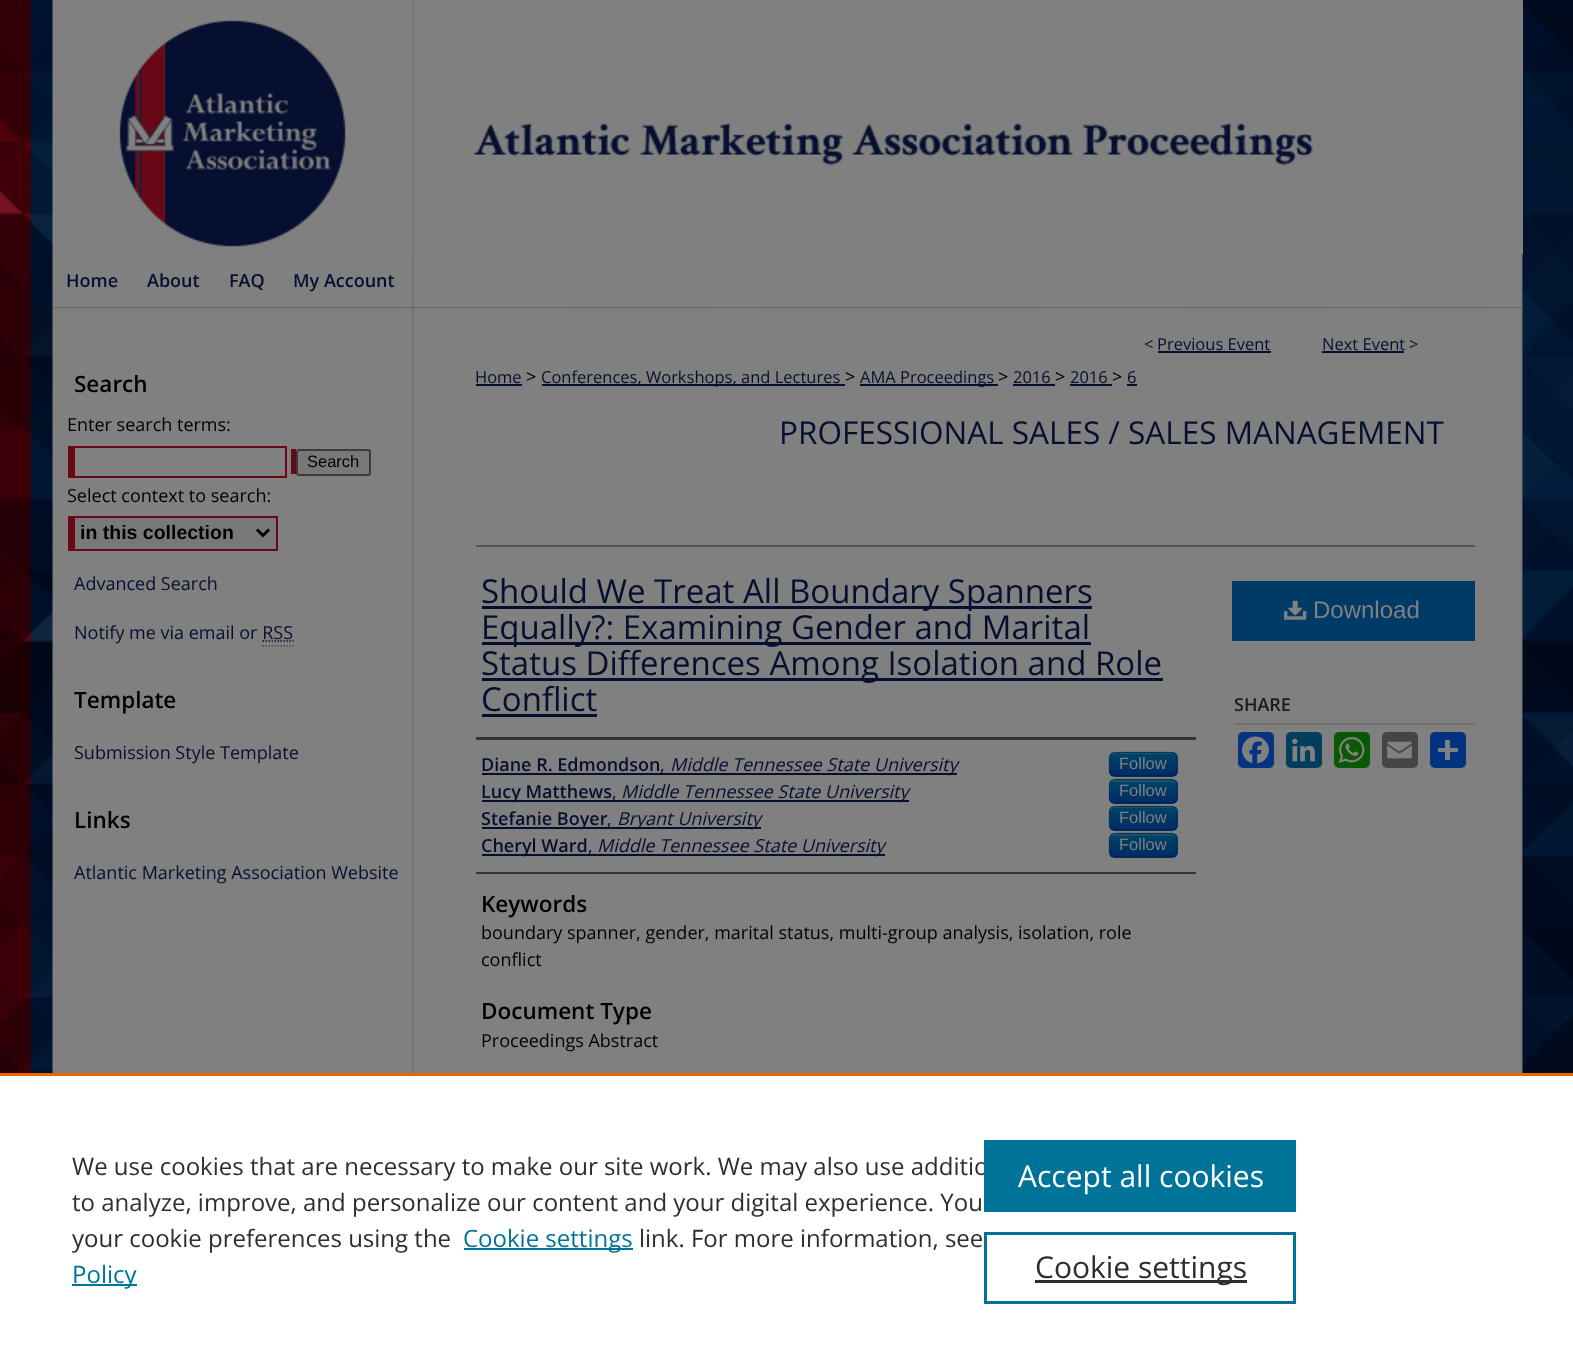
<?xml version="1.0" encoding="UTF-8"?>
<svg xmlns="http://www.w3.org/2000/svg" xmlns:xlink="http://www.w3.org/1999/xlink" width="1573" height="1363">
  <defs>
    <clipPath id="clip1"><rect x="1109" y="752" width="69" height="25" rx="6" /></clipPath>
    <linearGradient id="g1" gradientUnits="userSpaceOnUse" x1="1143" y1="753" x2="1143" y2="776"><stop offset="0" stop-color="#004466" /><stop offset="1" stop-color="#002b66" /></linearGradient>
    <clipPath id="clip2"><rect x="1109" y="779" width="69" height="25" rx="6" /></clipPath>
    <linearGradient id="g2" gradientUnits="userSpaceOnUse" x1="1143" y1="780" x2="1143" y2="803"><stop offset="0" stop-color="#004466" /><stop offset="1" stop-color="#002b66" /></linearGradient>
    <clipPath id="clip3"><rect x="1109" y="806" width="69" height="25" rx="6" /></clipPath>
    <linearGradient id="g3" gradientUnits="userSpaceOnUse" x1="1143" y1="807" x2="1143" y2="830"><stop offset="0" stop-color="#004466" /><stop offset="1" stop-color="#002b66" /></linearGradient>
    <clipPath id="clip4"><rect x="1109" y="833" width="69" height="25" rx="6" /></clipPath>
    <linearGradient id="g4" gradientUnits="userSpaceOnUse" x1="1143" y1="834" x2="1143" y2="857"><stop offset="0" stop-color="#004466" /><stop offset="1" stop-color="#002b66" /></linearGradient>
  </defs>
  <rect width="100%" height="100%" fill="#ffffff" />
  <image x="0" y="0" width="1573" height="1073" xlink:href="image1.png" />
  <rect x="53" width="1470" height="254" fill="#808080" />
  <image x="412" y="0" width="901" height="254" xlink:href="image3.png" />
  <image x="52" y="253" width="1471" height="55" xlink:href="image4.png" />
  <image x="52" y="0" width="361" height="254" xlink:href="image2.png" />
  <image x="52" y="307" width="1471" height="766" xlink:href="image5.png" />
  <rect x="68" y="446" width="219" height="32" fill="#680916" />
  <rect x="291" y="449" width="5" height="25" fill="#680916" />
  <rect x="75" y="448" width="210" height="28" fill="#808080" />
  <rect x="297" y="450" width="73" height="25" rx="2" fill="#787878" stroke="#3b3b3b" stroke-width="2" />
  <rect x="75" y="518" width="201" height="31" fill="#787878" />
  <rect x="68" y="516" width="210" height="2" fill="#680916" />
  <rect x="276" y="516" width="2" height="35" fill="#680916" />
  <rect x="68" y="549" width="210" height="2" fill="#680916" />
  <rect x="68" y="516" width="7" height="35" fill="#680916" />
  <path d="M 257 529.5 l 6 6 l 6 -6" fill="none" stroke="#000000" stroke-width="3" />
  <path d="M 262.5 641 h 31" fill="none" stroke="#060f30" stroke-width="1.5" stroke-dasharray="1.5 1.5" />
  <path d="M 262.5 646 h 31.5" fill="none" stroke="#4d4d4d" stroke-width="1.5" stroke-dasharray="1.5 1.5" />
  <rect x="1158" y="351" width="113" height="2" fill="#060f30" />
  <rect x="1322" y="351" width="82" height="2" fill="#060f30" />
  <rect x="476" y="384" width="46" height="2" fill="#060f30" />
  <rect x="542" y="384" width="303" height="2" fill="#060f30" />
  <rect x="860" y="384" width="138" height="2" fill="#060f30" />
  <rect x="1013" y="384" width="42" height="2" fill="#060f30" />
  <rect x="1070" y="384" width="42" height="2" fill="#060f30" />
  <rect x="1127" y="384" width="10" height="2" fill="#060f30" />
  <rect x="476" y="545" width="999" height="2" fill="#555555" />
  <rect x="482" y="606" width="610" height="3" fill="#060f30" />
  <rect x="482" y="642" width="609" height="3" fill="#060f30" />
  <rect x="482" y="678" width="681" height="3" fill="#060f30" />
  <rect x="482" y="714" width="115" height="3" fill="#060f30" />
  <rect x="476" y="737" width="720" height="3" fill="#333333" />
  <rect x="476" y="872" width="720" height="2" fill="#333333" />
  <rect x="482" y="773" width="475" height="2" fill="#060f30" />
  <rect x="1109" y="752" width="69" height="25" rx="6" fill="#003a66" />
  <g clip-path="url(#clip1)">
    <rect x="1109" y="753" width="69" height="23" fill="url(#g1)" />
  </g>
  <path d="M 1114 754 h 58 c 2 0 4 3 4 5 c 0 -8 -8 -6 -14 -6 h -38 c -6 0 -14 -2 -14 6 c 0 -2 2 -5 4 -5 z" fill="#1a506b" />
  <path d="M 1175 774.5 c -1 1 -2 1.5 -3.5 1.5 h -57 c -1.5 0 -2.5 -0.5 -3.5 -1.5" fill="none" stroke="#000000" stroke-opacity="0.25" stroke-width="1.5" />
  <path d="M 1111 774.5 c -3 -2.5 -2 -7 -2 -10.5 c 0 -13 1 -12 15 -12 h 38 c 14 0 15 -1 15 12 c 0 3.5 1 8 -2 10.5" fill="none" stroke="#000000" stroke-opacity="0.1" stroke-width="1.5" />
  <rect x="482" y="800" width="427" height="2" fill="#060f30" />
  <rect x="1109" y="779" width="69" height="25" rx="6" fill="#003a66" />
  <g clip-path="url(#clip2)">
    <rect x="1109" y="780" width="69" height="23" fill="url(#g2)" />
  </g>
  <path d="M 1114 782 h 58 c 2 0 4 2 4 4 c 0 -8 -8 -6 -14 -6 h -38 c -6 0 -14 -2 -14 6 c 0 -2 2 -4 4 -4 z" fill="#808080" fill-opacity="0.2" />
  <path d="M 1175 801.5 c -1 1 -2 1.5 -3.5 1.5 h -57 c -1.5 0 -2.5 -0.5 -3.5 -1.5" fill="none" stroke="#000000" stroke-opacity="0.25" stroke-width="1.5" />
  <path d="M 1111 801.5 c -3 -2.5 -2 -7 -2 -10.5 c 0 -13 1 -12 15 -12 h 38 c 14 0 15 -1 15 12 c 0 3.5 1 8 -2 10.5" fill="none" stroke="#000000" stroke-opacity="0.1" stroke-width="1.5" />
  <rect x="482" y="827" width="279" height="2" fill="#060f30" />
  <rect x="1109" y="806" width="69" height="25" rx="6" fill="#003a66" />
  <g clip-path="url(#clip3)">
    <rect x="1109" y="807" width="69" height="23" fill="url(#g3)" />
  </g>
  <path d="M 1114 808 h 58 c 2 0 4 3 4 5 c 0 -8 -8 -6 -14 -6 h -38 c -6 0 -14 -2 -14 6 c 0 -2 2 -5 4 -5 z" fill="#1a506b" />
  <path d="M 1175 828.5 c -1 1 -2 1.5 -3.5 1.5 h -57 c -1.5 0 -2.5 -0.5 -3.5 -1.5" fill="none" stroke="#000000" stroke-opacity="0.25" stroke-width="1.5" />
  <path d="M 1111 828.5 c -3 -2.5 -2 -7 -2 -10.5 c 0 -13 1 -12 15 -12 h 38 c 14 0 15 -1 15 12 c 0 3.5 1 8 -2 10.5" fill="none" stroke="#000000" stroke-opacity="0.1" stroke-width="1.5" />
  <rect x="482" y="854" width="403" height="2" fill="#060f30" />
  <rect x="1109" y="833" width="69" height="25" rx="6" fill="#003a66" />
  <g clip-path="url(#clip4)">
    <rect x="1109" y="834" width="69" height="23" fill="url(#g4)" />
  </g>
  <path d="M 1114 836 h 58 c 2 0 4 2 4 4 c 0 -8 -8 -6 -14 -6 h -38 c -6 0 -14 -2 -14 6 c 0 -2 2 -4 4 -4 z" fill="#808080" fill-opacity="0.2" />
  <path d="M 1175 855.5 c -1 1 -2 1.5 -3.5 1.5 h -57 c -1.5 0 -2.5 -0.5 -3.5 -1.5" fill="none" stroke="#000000" stroke-opacity="0.25" stroke-width="1.5" />
  <path d="M 1111 855.5 c -3 -2.5 -2 -7 -2 -10.5 c 0 -13 1 -12 15 -12 h 38 c 14 0 15 -1 15 12 c 0 3.5 1 8 -2 10.5" fill="none" stroke="#000000" stroke-opacity="0.1" stroke-width="1.5" />
  <rect x="1232" y="581" width="243" height="60" fill="#003a66" />
  <image x="1284" y="600" width="23" height="20" xlink:href="image6.png" />
  <rect x="1235" y="723" width="240" height="2" fill="#6f6f6f" />
  <rect x="1238" y="732" width="36" height="36" rx="5" fill="#043380" />
  <image x="1242" y="736" width="27" height="28" xlink:href="image7.png" />
  <rect x="1286" y="732" width="36" height="36" rx="5" fill="#003e5b" />
  <image x="1292" y="738" width="23" height="24" xlink:href="image8.png" />
  <rect x="1334" y="732" width="36" height="36" rx="5" fill="#095805" />
  <image x="1338" y="737" width="27" height="26" xlink:href="image9.png" />
  <rect x="1382" y="732" width="36" height="36" rx="5" fill="#444548" />
  <image x="1387" y="741" width="25" height="18" xlink:href="image10.png" />
  <rect x="1430" y="732" width="36" height="36" rx="5" fill="#013380" />
  <rect x="1445" y="740" width="5" height="20" fill="#808080" />
  <rect x="1438" y="748" width="20" height="4" fill="#808080" />
  <rect y="1073" width="1573" height="3" fill="#eb6500" />
  <rect x="464" y="1248" width="169" height="2" fill="#007398" />
  <rect x="72" y="1284" width="65" height="2" fill="#007398" />
  <rect x="985.5" y="1233.5" width="309" height="69" fill="none" stroke="#007398" stroke-width="3" />
  <rect x="1035" y="1280" width="212" height="3" fill="#2e2e2e" />
  <text x="66" y="287" style="font-family: Open Sans; font-size: 18px; font-weight: 600; fill: #060f30">Home</text>
  <text x="147" y="287" style="font-family: Open Sans; font-size: 18px; font-weight: 600; fill: #060f30">About</text>
  <text x="229" y="287" style="font-family: Open Sans; font-size: 18px; font-weight: 600; fill: #060f30">FAQ</text>
  <text x="293" y="287" style="font-family: Open Sans; font-size: 18px; font-weight: 600; fill: #060f30">My Account</text>
  <text x="74" y="392" style="font-family: Open Sans; font-size: 22.5px; font-weight: 600; fill: #000000">Search</text>
  <text x="67" y="431" style="font-family: Open Sans; font-size: 18px; fill: #000000">Enter search terms:</text>
  <text x="307" y="467" style="font-family: Liberation Sans; font-size: 16.5px; fill: #000000">Search</text>
  <text x="67" y="502" style="font-family: Open Sans; font-size: 18px; fill: #000000">Select context to search:</text>
  <text x="80" y="539" style="font-family: Liberation Sans; font-size: 19.5px; font-weight: bold; fill: #000000">in this collection</text>
  <text x="74" y="590" style="font-family: Open Sans; font-size: 18px; fill: #060f30">Advanced Search</text>
  <text x="74" y="639" style="font-family: Open Sans; font-size: 18px; fill: #060f30">Notify me via email or RSS</text>
  <text x="74" y="708" style="font-family: Open Sans; font-size: 22.5px; font-weight: 600; fill: #000000">Template</text>
  <text x="74" y="759" style="font-family: Open Sans; font-size: 18px; fill: #060f30">Submission Style Template</text>
  <text x="74" y="828" style="font-family: Open Sans; font-size: 22.5px; font-weight: 600; fill: #000000">Links</text>
  <text x="74" y="879" style="font-family: Open Sans; font-size: 18px; fill: #060f30">Atlantic Marketing Association Website</text>
  <text x="1144" y="350" style="font-family: Open Sans; font-size: 16.5px; fill: #111111">&lt;</text>
  <text x="1157" y="350" style="font-family: Open Sans; font-size: 16.5px; fill: #060f30">Previous Event</text>
  <text x="1322" y="350" style="font-family: Open Sans; font-size: 16.5px; fill: #060f30">Next Event</text>
  <text x="1409" y="350" style="font-family: Open Sans; font-size: 16.5px; fill: #111111">&gt;</text>
  <text x="475" y="383" style="font-family: Open Sans; font-size: 16.5px; fill: #060f30">Home</text>
  <text x="526" y="383" style="font-family: Open Sans; font-size: 18px; fill: #000000">&gt;</text>
  <text x="541" y="383" style="font-family: Open Sans; font-size: 16.5px; fill: #060f30">Conferences, Workshops, and Lectures</text>
  <text x="845" y="383" style="font-family: Open Sans; font-size: 18px; fill: #000000">&gt;</text>
  <text x="860" y="383" style="font-family: Open Sans; font-size: 16.5px; fill: #060f30">AMA Proceedings</text>
  <text x="998" y="383" style="font-family: Open Sans; font-size: 18px; fill: #000000">&gt;</text>
  <text x="1013" y="383" style="font-family: Open Sans; font-size: 16.5px; fill: #060f30">2016</text>
  <text x="1055" y="383" style="font-family: Open Sans; font-size: 18px; fill: #000000">&gt;</text>
  <text x="1070" y="383" style="font-family: Open Sans; font-size: 16.5px; fill: #060f30">2016</text>
  <text x="1112" y="383" style="font-family: Open Sans; font-size: 18px; fill: #000000">&gt;</text>
  <text x="1127" y="383" style="font-family: Open Sans; font-size: 16.5px; fill: #060f30">6</text>
  <text x="779" y="444" style="font-family: Open Sans; font-size: 31.5px; fill: #060f30">PROFESSIONAL SALES / SALES MANAGEMENT</text>
  <text x="481" y="603" style="font-family: Open Sans; font-size: 33px; fill: #060f30">Should We Treat All Boundary Spanners</text>
  <text x="481" y="639" style="font-family: Open Sans; font-size: 33px; fill: #060f30">Equally?: Examining Gender and Marital</text>
  <text x="481" y="675" style="font-family: Open Sans; font-size: 33px; fill: #060f30">Status Differences Among Isolation and Role</text>
  <text x="481" y="711" style="font-family: Open Sans; font-size: 33px; fill: #060f30">Conflict</text>
  <text x="481" y="771" style="font-family: Open Sans; font-size: 18px; font-weight: 600; fill: #060f30">Diane R. Edmondson</text>
  <text x="660" y="771" style="font-family: Open Sans; font-size: 18px; fill: #060f30">,</text>
  <text x="670" y="771" style="font-family: Open Sans; font-size: 18px; font-style: italic; fill: #060f30">Middle Tennessee State University</text>
  <text x="1119" y="769" style="font-family: Liberation Sans; font-size: 16.5px; fill: #808080">Follow</text>
  <text x="481" y="798" style="font-family: Open Sans; font-size: 18px; font-weight: 600; fill: #060f30">Lucy Matthews</text>
  <text x="612" y="798" style="font-family: Open Sans; font-size: 18px; fill: #060f30">,</text>
  <text x="621" y="798" style="font-family: Open Sans; font-size: 18px; font-style: italic; fill: #060f30">Middle Tennessee State University</text>
  <text x="1119" y="796" style="font-family: Liberation Sans; font-size: 16.5px; fill: #808080">Follow</text>
  <text x="481" y="825" style="font-family: Open Sans; font-size: 18px; font-weight: 600; fill: #060f30">Stefanie Boyer</text>
  <text x="607" y="825" style="font-family: Open Sans; font-size: 18px; fill: #060f30">,</text>
  <text x="617" y="825" style="font-family: Open Sans; font-size: 18px; font-style: italic; fill: #060f30">Bryant University</text>
  <text x="1119" y="823" style="font-family: Liberation Sans; font-size: 16.5px; fill: #808080">Follow</text>
  <text x="481" y="852" style="font-family: Open Sans; font-size: 18px; font-weight: 600; fill: #060f30">Cheryl Ward</text>
  <text x="588" y="852" style="font-family: Open Sans; font-size: 18px; fill: #060f30">,</text>
  <text x="597" y="852" style="font-family: Open Sans; font-size: 18px; font-style: italic; fill: #060f30">Middle Tennessee State University</text>
  <text x="1119" y="850" style="font-family: Liberation Sans; font-size: 16.5px; fill: #808080">Follow</text>
  <text x="481" y="912" style="font-family: Open Sans; font-size: 22.5px; font-weight: 600; fill: #000000">Keywords</text>
  <text x="481" y="939" style="font-family: Open Sans; font-size: 18px; fill: #000000">boundary spanner, gender, marital status, multi-group analysis, isolation, role</text>
  <text x="481" y="966" style="font-family: Open Sans; font-size: 18px; fill: #000000">conflict</text>
  <text x="481" y="1019" style="font-family: Open Sans; font-size: 22.5px; font-weight: 600; fill: #000000">Document Type</text>
  <text x="481" y="1047" style="font-family: Open Sans; font-size: 18px; fill: #000000">Proceedings Abstract</text>
  <text x="1313" y="618" style="font-family: Liberation Sans; font-size: 24px; fill: #808080">Download</text>
  <text x="1234" y="711" style="font-family: Open Sans; font-size: 18px; font-weight: 600; fill: #1a1a1a">SHARE</text>
  <text x="72" y="1175" style="font-family: Open Sans; font-size: 24px; fill: #2e2e2e">We use cookies that are necessary to make our site work. We may also use additio</text>
  <text x="72" y="1211" style="font-family: Open Sans; font-size: 24px; fill: #2e2e2e">to analyze, improve, and personalize our content and your digital experience. You</text>
  <text x="72" y="1247" style="font-family: Open Sans; font-size: 24px; fill: #2e2e2e">your cookie preferences using the</text>
  <text x="463" y="1247" style="font-family: Open Sans; font-size: 24px; fill: #007398">Cookie settings</text>
  <text x="639" y="1247" style="font-family: Open Sans; font-size: 24px; fill: #2e2e2e">link. For more information, see</text>
  <text x="72" y="1283" style="font-family: Open Sans; font-size: 24px; fill: #007398">Policy</text>
  <rect x="984" y="1140" width="312" height="72" fill="#007398" />
  <text x="1018" y="1187" style="font-family: Open Sans; font-size: 30px; fill: #ffffff">Accept all cookies</text>
  <text x="1035" y="1278" style="font-family: Open Sans; font-size: 30px; fill: #2e2e2e">Cookie settings</text>
</svg>
